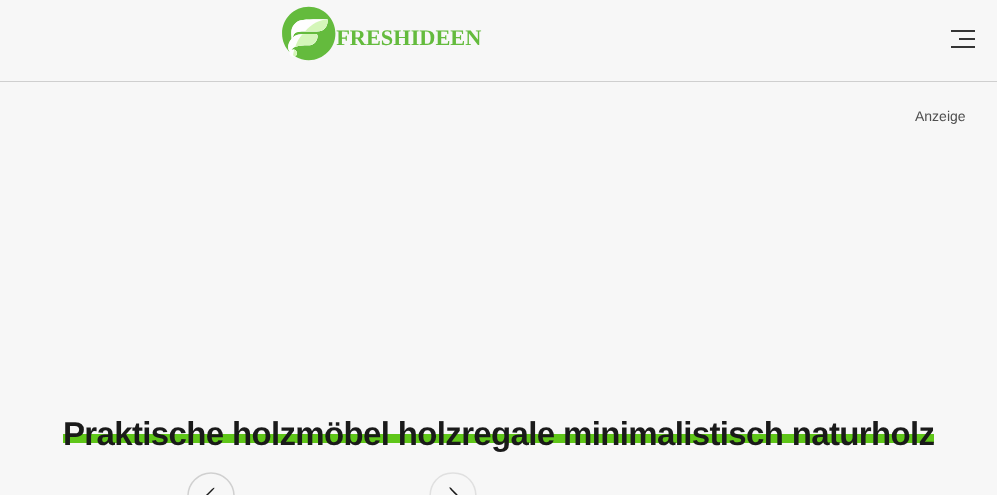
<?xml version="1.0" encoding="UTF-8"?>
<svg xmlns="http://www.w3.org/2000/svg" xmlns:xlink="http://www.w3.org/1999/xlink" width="997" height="495">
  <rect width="100%" height="100%" fill="#f7f7f7" />
  <rect y="81" width="997" height="1" fill="#cfcfcf" />
  <image x="282" y="6" width="200" height="55" xlink:href="image1.png" />
  <rect x="951" y="30" width="24" height="2" fill="#353535" />
  <rect x="959" y="38" width="16" height="2" fill="#353535" />
  <rect x="951" y="46" width="24" height="2" fill="#353535" />
  <rect x="63" y="434" width="871" height="9" fill="#5fc619" />
  <circle cx="211" cy="496" r="23" fill="none" stroke="#d0d0d0" stroke-width="1.5" />
  <path d="M 214.5 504 c -1 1 -3 -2 -3.5 -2.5 l -4 -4 c -2 -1.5 -2 -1.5 0 -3.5 l 5 -5 c 2.5 -2 3.5 -1.5 1 1 l -6 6 c 1.5 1.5 8.5 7 7.5 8 z" fill="#1a1a1a" fill-rule="evenodd" />
  <path d="M 453 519 c -30.5 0 -30.5 -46 0 -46 c 30.5 0 30.5 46 0 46 z" fill="none" stroke="#e0e0e0" stroke-width="1.5" />
  <path d="M 449.5 487.5 c 1 -1 3 2.5 3.5 2.5 l 4 4 c 1.5 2 1.5 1.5 0 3.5 l -5 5 c -2.5 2.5 -3.5 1.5 -1 -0.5 l 6 -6 c -1.5 -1.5 -8.5 -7.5 -7.5 -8.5 z" fill="#1a1a1a" fill-rule="evenodd" />
  <text x="915" y="121" style="font-family: Liberation Sans; font-size: 14px; fill: #4f4f4f">Anzeige</text>
  <text x="63" y="445" style="font-family: Liberation Sans; font-size: 33px; font-weight: bold; letter-spacing: -0.65px; fill: #1a1a1a">Praktische holzmöbel holzregale minimalistisch naturholz</text>
</svg>
